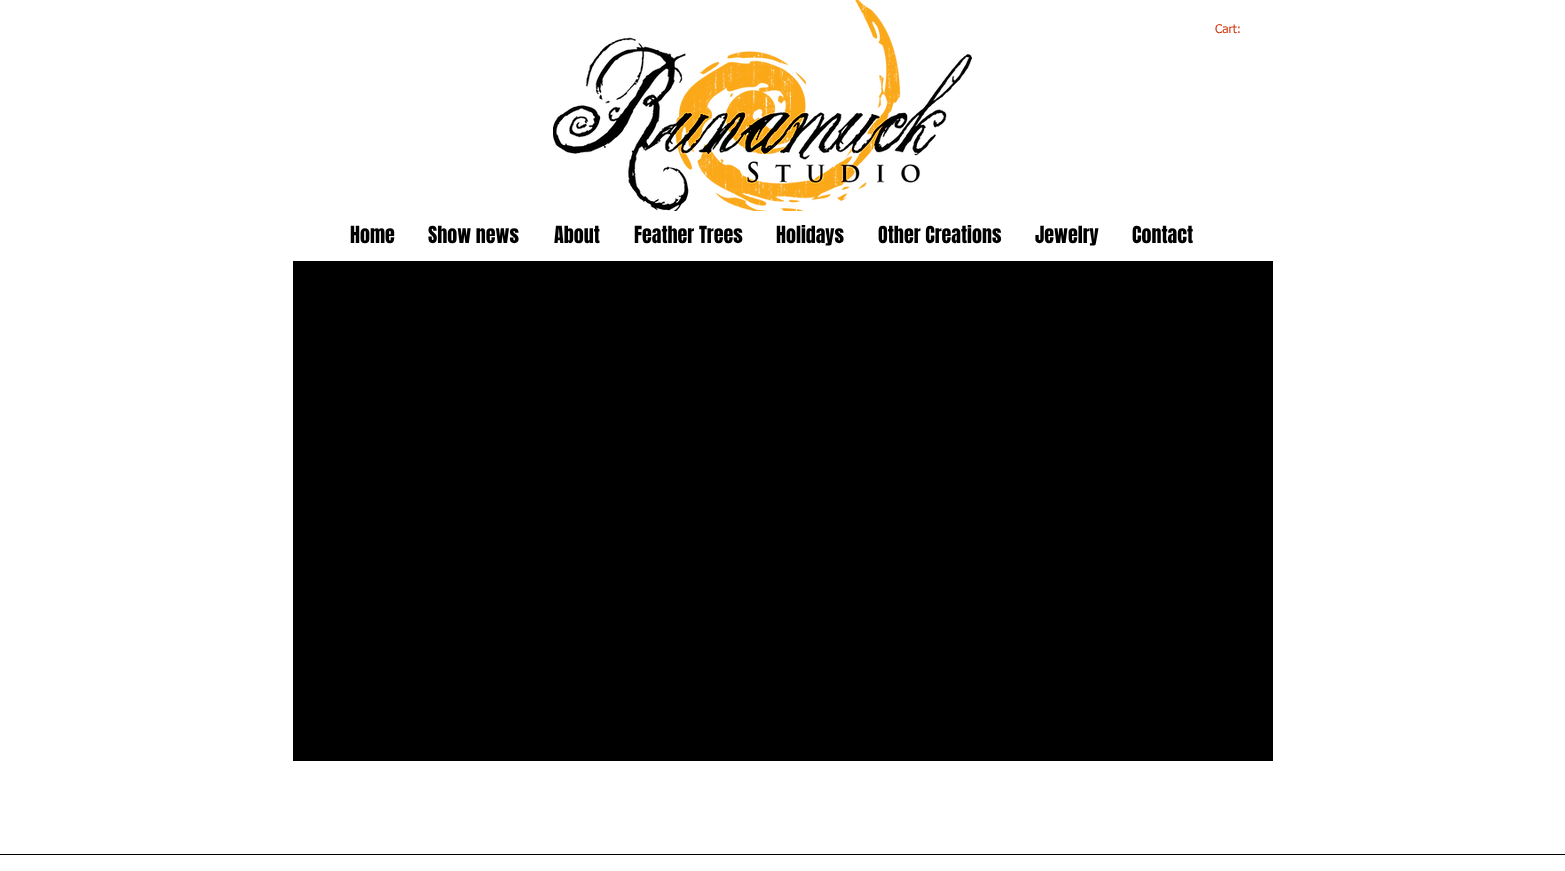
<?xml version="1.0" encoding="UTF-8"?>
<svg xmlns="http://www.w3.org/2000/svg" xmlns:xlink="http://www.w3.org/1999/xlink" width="1565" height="871">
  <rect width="100%" height="100%" fill="#ffffff" />
  <image x="553" y="0" width="419" height="211" xlink:href="image1.png" />
  <rect x="293" y="261" width="980" height="500" fill="#000000" />
  <rect y="854" width="1565" height="1" fill="#000000" />
  <text x="1215" y="33" style="font-family: tahoma; font-size: 12px; fill: #d33710">Cart:</text>
  <text x="350" y="243" style="font-family: Anton; font-size: 20px; fill: #000000">Home</text>
  <text x="428" y="243" style="font-family: Anton; font-size: 20px; fill: #000000">Show news</text>
  <text x="554" y="243" style="font-family: Anton; font-size: 20px; fill: #000000">About</text>
  <text x="634" y="243" style="font-family: Anton; font-size: 20px; fill: #000000">Feather Trees</text>
  <text x="776" y="243" style="font-family: Anton; font-size: 20px; fill: #000000">Holidays</text>
  <text x="878" y="243" style="font-family: Anton; font-size: 20px; fill: #000000">Other Creations</text>
  <text x="1035" y="243" style="font-family: Anton; font-size: 20px; fill: #000000">Jewelry</text>
  <text x="1132" y="243" style="font-family: Anton; font-size: 20px; fill: #000000">Contact</text>
</svg>
